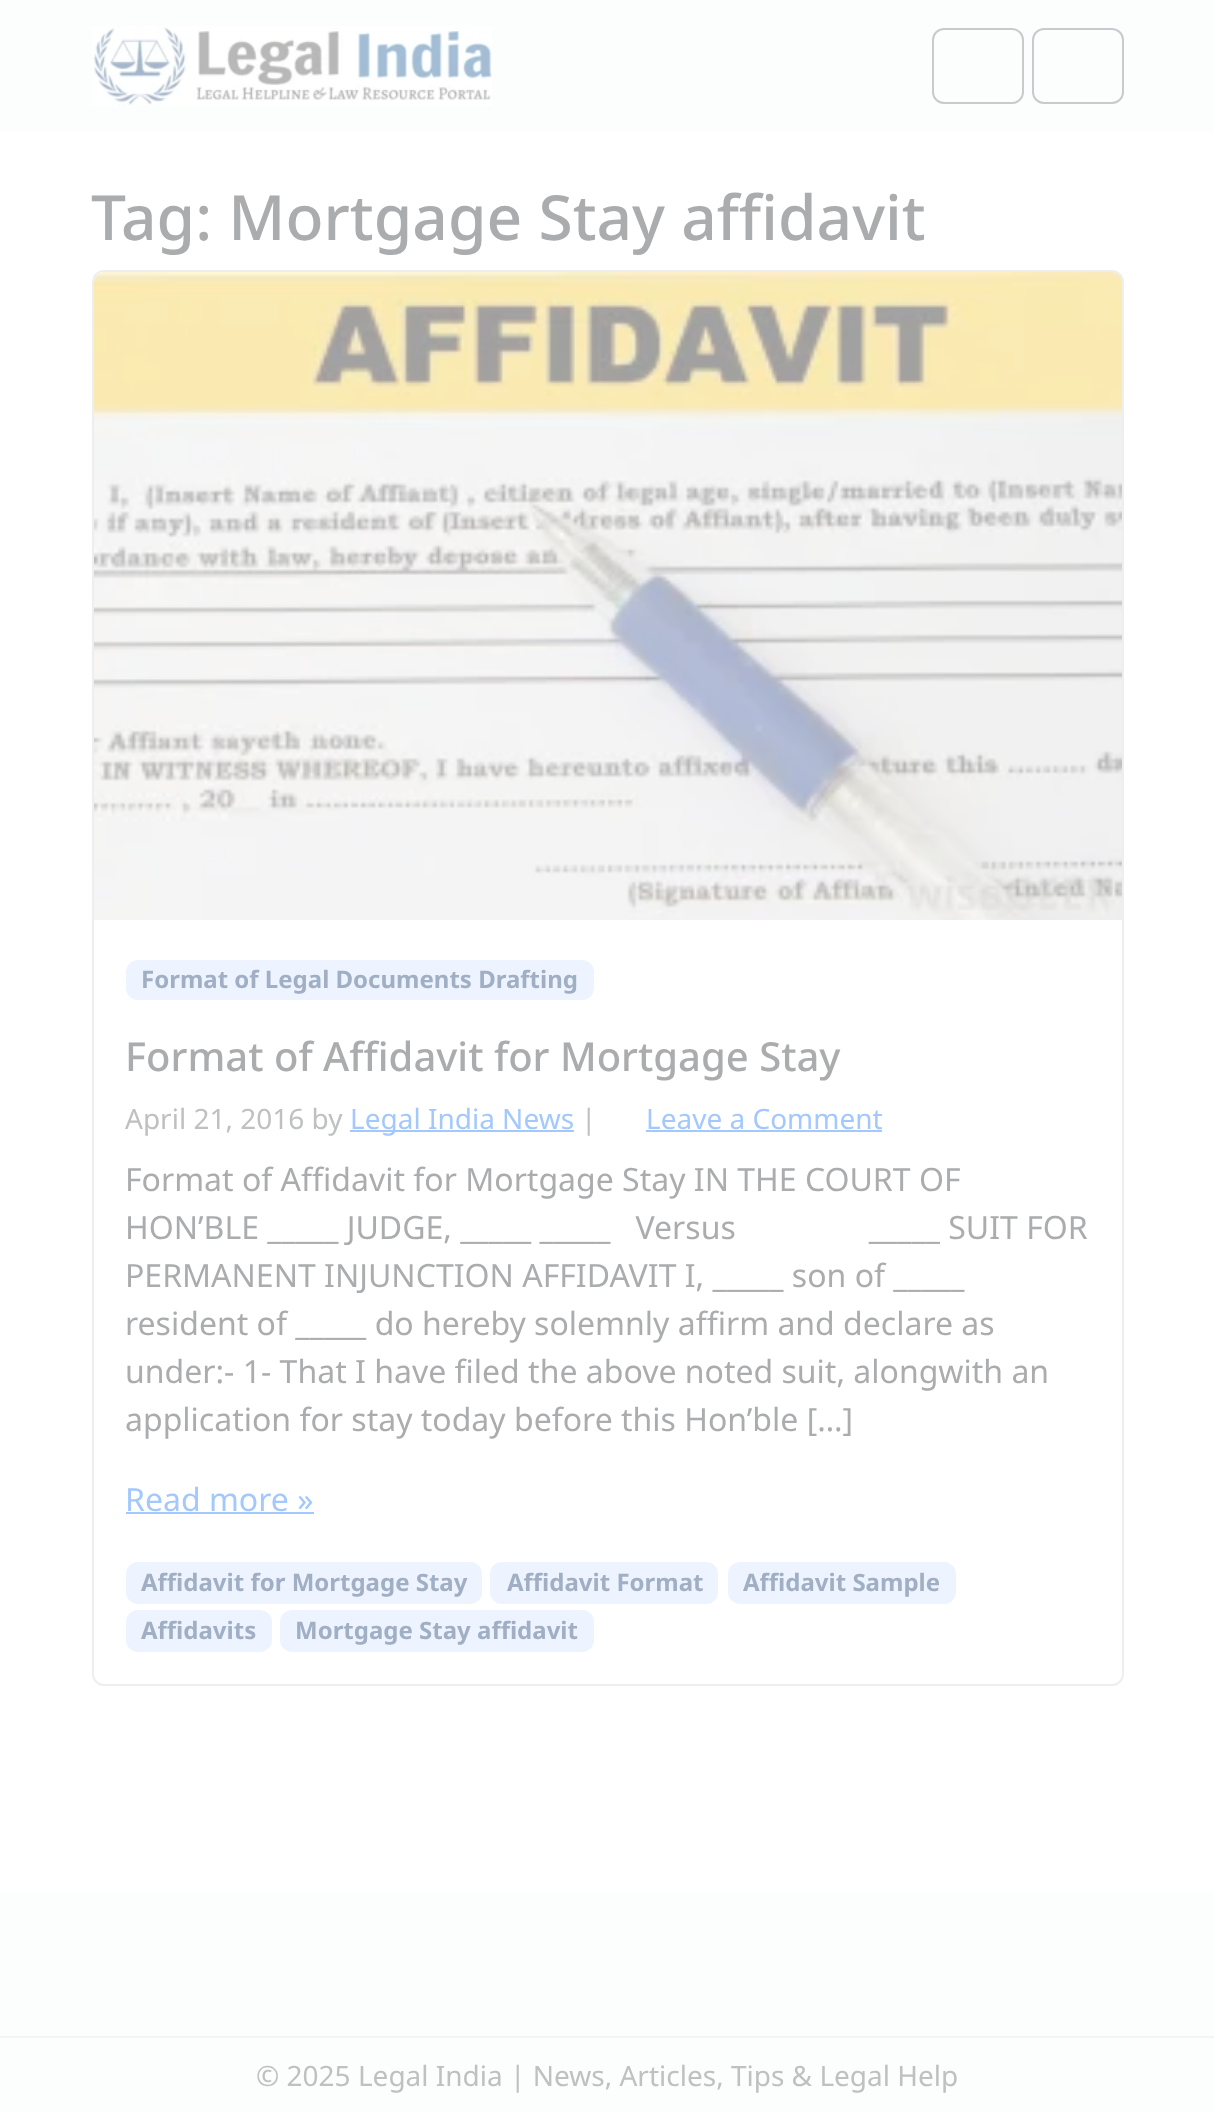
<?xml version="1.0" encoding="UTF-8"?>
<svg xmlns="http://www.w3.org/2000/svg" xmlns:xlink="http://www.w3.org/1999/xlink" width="1214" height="2112">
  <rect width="100%" height="100%" fill="#ffffff" />
  <rect width="1214" height="132" fill="#fcfdfd" />
  <image x="92" y="26" width="400" height="80" xlink:href="image1.png" />
  <rect x="933" y="29" width="90" height="74" rx="11" fill="none" stroke="#c7cbce" stroke-width="2" />
  <rect x="1033" y="29" width="90" height="74" rx="11" fill="none" stroke="#c7cbce" stroke-width="2" />
  <rect x="93" y="271" width="1030" height="1414" rx="11" fill="none" stroke="#eeeeee" stroke-width="2" />
  <image x="94" y="272" width="1028" height="648" xlink:href="image2.png" />
  <rect x="126" y="960" width="468" height="40" rx="12" fill="#edf4ff" />
  <rect x="350" y="1130" width="224" height="2" fill="#a3c8fe" />
  <rect x="646" y="1130" width="236" height="2" fill="#a3c8fe" />
  <rect x="126" y="1512" width="188" height="2" fill="#a3c8fe" />
  <rect x="126" y="1562" width="356" height="42" rx="12" fill="#edf4ff" />
  <rect x="490" y="1562" width="228" height="42" rx="12" fill="#edf4ff" />
  <rect x="728" y="1562" width="228" height="42" rx="12" fill="#edf4ff" />
  <rect x="126" y="1610" width="146" height="42" rx="12" fill="#edf4ff" />
  <rect x="280" y="1610" width="314" height="42" rx="12" fill="#edf4ff" />
  <rect y="1892" width="1214" height="144" fill="#fcfdfd" />
  <rect y="2038" width="1214" height="74" fill="#fcfdfd" />
  <rect y="2036" width="1214" height="2" fill="#f2f4f6" />
  <text x="91" y="240" style="font-family: Noto Sans; font-size: 62.25px; font-weight: 500; fill: #abacae">Tag: Mortgage Stay affidavit</text>
  <text x="141" y="988" style="font-family: Noto Sans; font-size: 24px; font-weight: bold; fill: #a0afc4">Format of Legal Documents Drafting</text>
  <text x="125" y="1071" style="font-family: Noto Sans; font-size: 40px; font-weight: 500; fill: #abacae">Format of Affidavit for Mortgage Stay</text>
  <text x="125" y="1129" style="font-family: Noto Sans; font-size: 28px; fill: #bfc0c1">April 21, 2016 by</text>
  <text x="350" y="1129" style="font-family: Noto Sans; font-size: 28px; fill: #a3c8fe">Legal India News</text>
  <text x="581" y="1129" style="font-family: Noto Sans; font-size: 28px; fill: #bfc0c1">|</text>
  <text x="646" y="1129" style="font-family: Noto Sans; font-size: 28px; fill: #a3c8fe">Leave a Comment</text>
  <text x="125" y="1191" style="font-family: Noto Sans; font-size: 32px; fill: #abacae">Format of Affidavit for Mortgage Stay IN THE COURT OF</text>
  <text x="125" y="1239" style="font-family: Noto Sans; font-size: 32px; fill: #abacae" xml:space="preserve">HON’BLE _____ JUDGE, _____ _____   Versus                _____ SUIT FOR</text>
  <text x="125" y="1287" style="font-family: Noto Sans; font-size: 32px; fill: #abacae">PERMANENT INJUNCTION AFFIDAVIT I, _____ son of _____</text>
  <text x="125" y="1335" style="font-family: Noto Sans; font-size: 32px; fill: #abacae">resident of _____ do hereby solemnly affirm and declare as</text>
  <text x="125" y="1383" style="font-family: Noto Sans; font-size: 32px; fill: #abacae">under:- 1- That I have filed the above noted suit, alongwith an</text>
  <text x="125" y="1431" style="font-family: Noto Sans; font-size: 32px; fill: #abacae">application for stay today before this Hon’ble […]</text>
  <text x="125" y="1511" style="font-family: Noto Sans; font-size: 32px; fill: #a3c8fe">Read more »</text>
  <text x="141" y="1591" style="font-family: Noto Sans; font-size: 24px; font-weight: bold; fill: #a0afc4">Affidavit for Mortgage Stay</text>
  <text x="507" y="1591" style="font-family: Noto Sans; font-size: 24px; font-weight: bold; fill: #a0afc4">Affidavit Format</text>
  <text x="743" y="1591" style="font-family: Noto Sans; font-size: 24px; font-weight: bold; fill: #a0afc4">Affidavit Sample</text>
  <text x="141" y="1639" style="font-family: Noto Sans; font-size: 24px; font-weight: bold; fill: #a0afc4">Affidavits</text>
  <text x="295" y="1639" style="font-family: Noto Sans; font-size: 24px; font-weight: bold; fill: #a0afc4">Mortgage Stay affidavit</text>
  <text x="256" y="2086" style="font-family: Noto Sans; font-size: 28px; fill: #bfc0c1">© 2025 Legal India | News, Articles, Tips &amp; Legal Help</text>
</svg>
